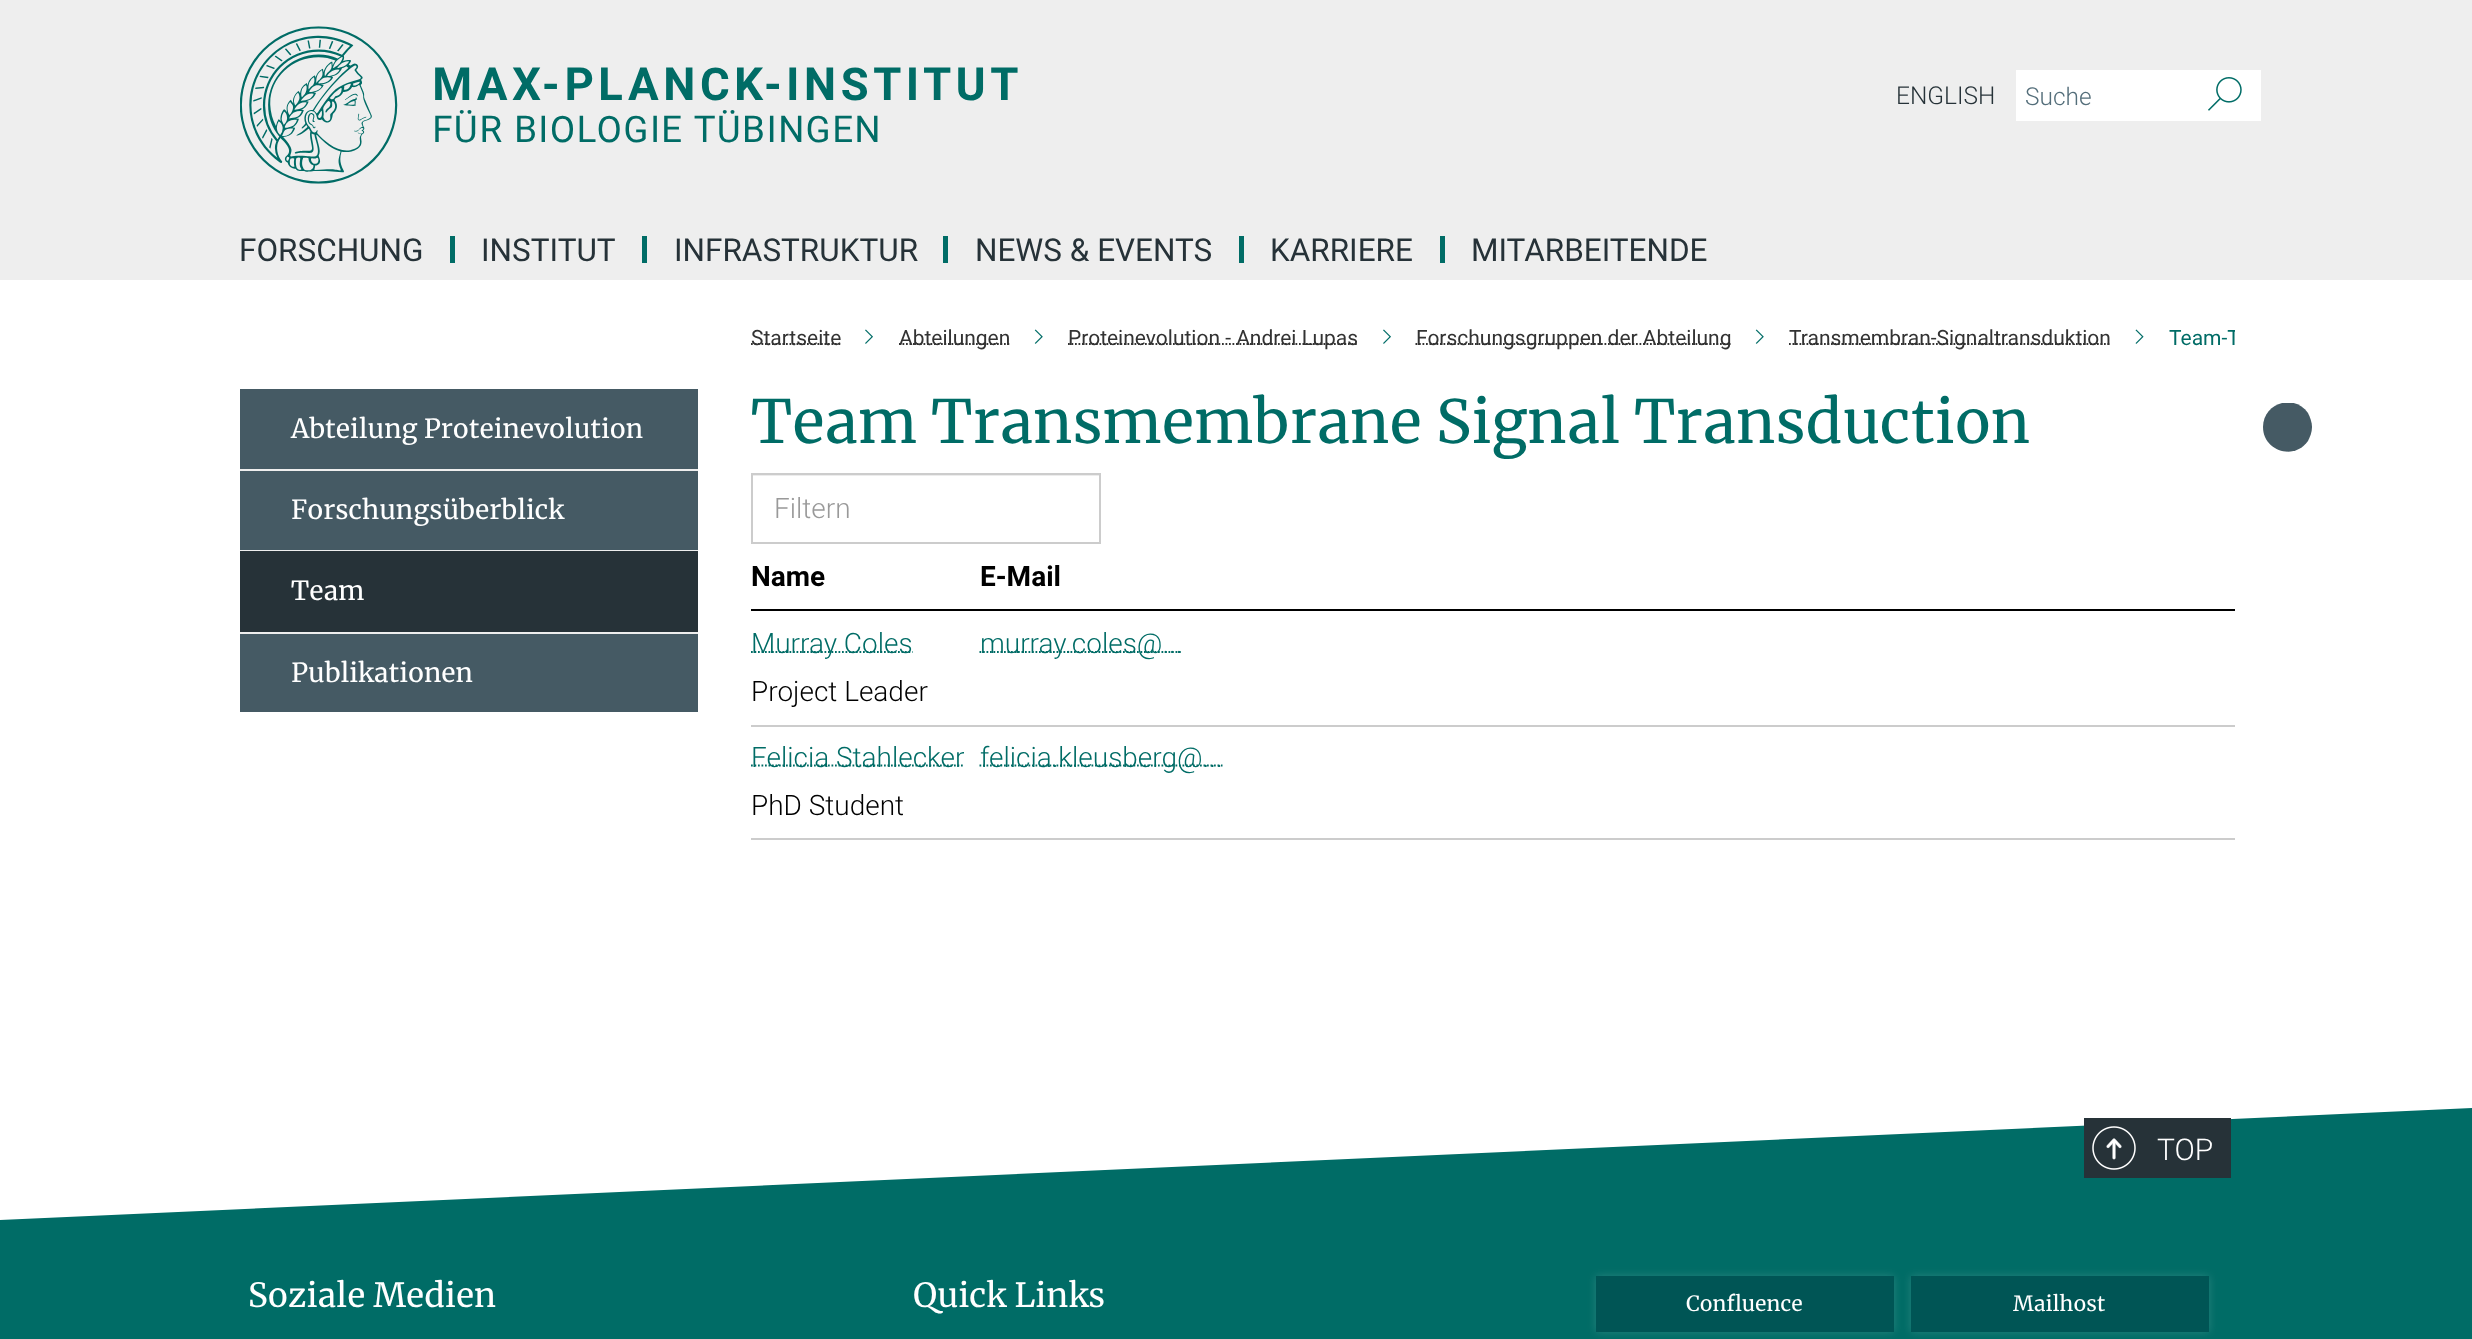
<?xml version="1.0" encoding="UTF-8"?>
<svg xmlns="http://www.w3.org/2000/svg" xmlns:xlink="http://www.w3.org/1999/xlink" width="2472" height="1339">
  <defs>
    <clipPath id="clip1"><rect x="2263" y="403" width="49" height="49" /></clipPath>
    <clipPath id="clip2"><rect x="751" y="284" width="1484" height="103" /></clipPath>
  </defs>
  <rect width="100%" height="100%" fill="#ffffff" />
  <rect width="2472" height="280" fill="#eeeeee" />
  <image x="240" y="26" width="778" height="158" xlink:href="image1.png" />
  <rect x="2016" y="70" width="245" height="51" fill="#ffffff" />
  <image x="2208" y="77" width="34" height="34" xlink:href="image2.png" />
  <rect x="450" y="236" width="5" height="27" fill="#006c66" />
  <rect x="642" y="236" width="5" height="27" fill="#006c66" />
  <rect x="943" y="236" width="5" height="27" fill="#006c66" />
  <rect x="1239" y="236" width="5" height="27" fill="#006c66" />
  <rect x="1440" y="236" width="5" height="27" fill="#006c66" />
  <rect x="240" y="389" width="458" height="80" fill="#455a64" />
  <rect x="240" y="469" width="458" height="2" fill="#eeeeee" />
  <rect x="240" y="471" width="458" height="79" fill="#455a64" />
  <rect x="240" y="550" width="458" height="1" fill="#eeeeee" />
  <rect x="240" y="551" width="458" height="81" fill="#263238" />
  <rect x="240" y="632" width="458" height="2" fill="#eeeeee" />
  <rect x="240" y="634" width="458" height="78" fill="#455a64" />
  <path d="M 751 344 h 90" fill="none" stroke="#333333" stroke-width="1.8" stroke-dasharray="1.75 1.75" />
  <image x="865" y="329" width="8" height="15" xlink:href="image3.png" />
  <path d="M 899 344 h 111" fill="none" stroke="#333333" stroke-width="1.8" stroke-dasharray="1.75 1.75" />
  <image x="1034" y="329" width="9" height="15" xlink:href="image4.png" />
  <path d="M 1068 344 h 290" fill="none" stroke="#333333" stroke-width="1.8" stroke-dasharray="1.75 1.75" />
  <image x="1383" y="329" width="8" height="15" xlink:href="image3.png" />
  <path d="M 1415.5 344 h 315.5" fill="none" stroke="#333333" stroke-width="1.8" stroke-dasharray="1.75 1.75" />
  <image x="1755" y="329" width="9" height="15" xlink:href="image4.png" />
  <path d="M 1789 344 h 322" fill="none" stroke="#333333" stroke-width="1.8" stroke-dasharray="1.75 1.75" />
  <image x="2135" y="329" width="9" height="15" xlink:href="image5.png" />
  <g clip-path="url(#clip1)">
    <path d="M 2312 427 c 0 5 -2 10 -4 14 c -14 20 -45 10 -45 -14 c 0 -24 31 -34 45 -14 c 2 4 4 9 4 14 z" fill="#455a64" />
  </g>
  <rect x="753" y="475" width="346" height="1" fill="#ececec" />
  <rect x="752" y="474" width="348" height="69" fill="none" stroke="#cccccc" stroke-width="2" />
  <rect x="751" y="609" width="1484" height="2" fill="#000000" />
  <rect x="751" y="725" width="1484" height="2" fill="#cccccc" />
  <path d="M 751 652 h 161.5" fill="none" stroke="#006c66" stroke-width="1.8" stroke-dasharray="1.75 1.75" />
  <path d="M 979.5 652 h 202.5" fill="none" stroke="#006c66" stroke-width="1.8" stroke-dasharray="1.75 1.75" />
  <rect x="751" y="838" width="1484" height="2" fill="#cccccc" />
  <path d="M 751 765.5 h 213" fill="none" stroke="#006c66" stroke-width="1.8" stroke-dasharray="1.75 1.75" />
  <path d="M 979.5 765.5 h 243" fill="none" stroke="#006c66" stroke-width="1.8" stroke-dasharray="1.75 1.75" />
  <rect y="1231" width="2472" height="108" fill="#006c66" />
  <path d="M 0 1220 l 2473 -112 v 123 h -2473" fill="#006c66" />
  <rect x="2084" y="1118" width="147" height="60" fill="#263238" />
  <image x="2106" y="1138" width="16" height="22" xlink:href="image6.png" />
  <image x="2092" y="1126" width="44" height="44" xlink:href="image7.png" />
  <rect x="1596" y="1276" width="298" height="56" fill="#ffffff" fill-opacity="0.15" filter="blur(4.5px)" />
  <rect x="1596" y="1276" width="298" height="56" fill="#005555" />
  <rect x="1911" y="1276" width="298" height="56" fill="#ffffff" fill-opacity="0.15" filter="blur(4.5px)" />
  <rect x="1911" y="1276" width="298" height="56" fill="#005555" />
  <text x="1896" y="104" style="font-family: Roboto; font-size: 24.5px; font-weight: 300; fill: #263238">ENGLISH</text>
  <text x="2025" y="105" style="font-family: Roboto; font-size: 24.5px; font-weight: 300; fill: #546e7a">Suche</text>
  <text x="239" y="261" style="font-family: Roboto; font-size: 31.5px; fill: #263238">FORSCHUNG</text>
  <text x="481" y="261" style="font-family: Roboto; font-size: 31.5px; fill: #263238">INSTITUT</text>
  <text x="674" y="261" style="font-family: Roboto; font-size: 31.5px; fill: #263238">INFRASTRUKTUR</text>
  <text x="975" y="261" style="font-family: Roboto; font-size: 31.5px; fill: #263238">NEWS &amp; EVENTS</text>
  <text x="1270" y="261" style="font-family: Roboto; font-size: 31.5px; fill: #263238">KARRIERE</text>
  <text x="1471" y="261" style="font-family: Roboto; font-size: 31.5px; fill: #263238">MITARBEITENDE</text>
  <text x="291" y="438" style="font-family: Merriweather; font-size: 26.25px; fill: #ffffff">Abteilung Proteinevolution</text>
  <text x="291" y="519" style="font-family: Merriweather; font-size: 26.25px; fill: #ffffff">Forschungsüberblick</text>
  <text x="291" y="600" style="font-family: Merriweather; font-size: 26.25px; fill: #ffffff">Team</text>
  <text x="291" y="682" style="font-family: Merriweather; font-size: 26.25px; fill: #ffffff">Publikationen</text>
  <text x="751" y="345" style="font-family: Roboto; font-size: 21px; fill: #333333">Startseite</text>
  <text x="899" y="345" style="font-family: Roboto; font-size: 21px; fill: #333333">Abteilungen</text>
  <text x="1068" y="345" style="font-family: Roboto; font-size: 21px; fill: #333333">Proteinevolution - Andrei Lupas</text>
  <text x="1416" y="345" style="font-family: Roboto; font-size: 21px; fill: #333333">Forschungsgruppen der Abteilung</text>
  <text x="1789" y="345" style="font-family: Roboto; font-size: 21px; fill: #333333">Transmembran-Signaltransduktion</text>
  <g clip-path="url(#clip2)">
    <text x="2169" y="345" style="font-family: Roboto; font-size: 21px; fill: #006c66">Team-T</text>
  </g>
  <text x="751" y="443" style="font-family: Merriweather; font-size: 59.5px; fill: #006c66">Team Transmembrane Signal Transduction</text>
  <text x="774" y="518" style="font-family: Roboto; font-size: 28px; font-weight: 300; fill: #999999">Filtern</text>
  <text x="751" y="586" style="font-family: Roboto; font-size: 28px; font-weight: bold; fill: #000000">Name</text>
  <text x="980" y="586" style="font-family: Roboto; font-size: 28px; font-weight: bold; fill: #000000">E-Mail</text>
  <text x="751" y="653" style="font-family: Roboto; font-size: 28px; font-weight: 300; fill: #006c66">Murray Coles</text>
  <text x="751" y="701" style="font-family: Roboto; font-size: 28px; font-weight: 300; fill: #000000">Project Leader</text>
  <text x="980" y="653" style="font-family: Roboto; font-size: 28px; font-weight: 300; fill: #006c66">murray.coles@...</text>
  <text x="751" y="767" style="font-family: Roboto; font-size: 28px; font-weight: 300; fill: #006c66">Felicia Stahlecker</text>
  <text x="751" y="815" style="font-family: Roboto; font-size: 28px; font-weight: 300; fill: #000000">PhD Student</text>
  <text x="980" y="767" style="font-family: Roboto; font-size: 28px; font-weight: 300; fill: #006c66">felicia.kleusberg@...</text>
  <text x="2157" y="1160" style="font-family: Roboto; font-size: 30px; font-weight: 300; fill: #ffffff">TOP</text>
  <text x="248" y="1307" style="font-family: Merriweather; font-size: 33.25px; fill: #ffffff">Soziale Medien</text>
  <text x="913" y="1307" style="font-family: Merriweather; font-size: 33.25px; fill: #ffffff">Quick Links</text>
  <text x="1686" y="1311" style="font-family: Merriweather; font-size: 21px; fill: #ffffff">Confluence</text>
  <text x="2013" y="1311" style="font-family: Merriweather; font-size: 21px; fill: #ffffff">Mailhost</text>
</svg>
